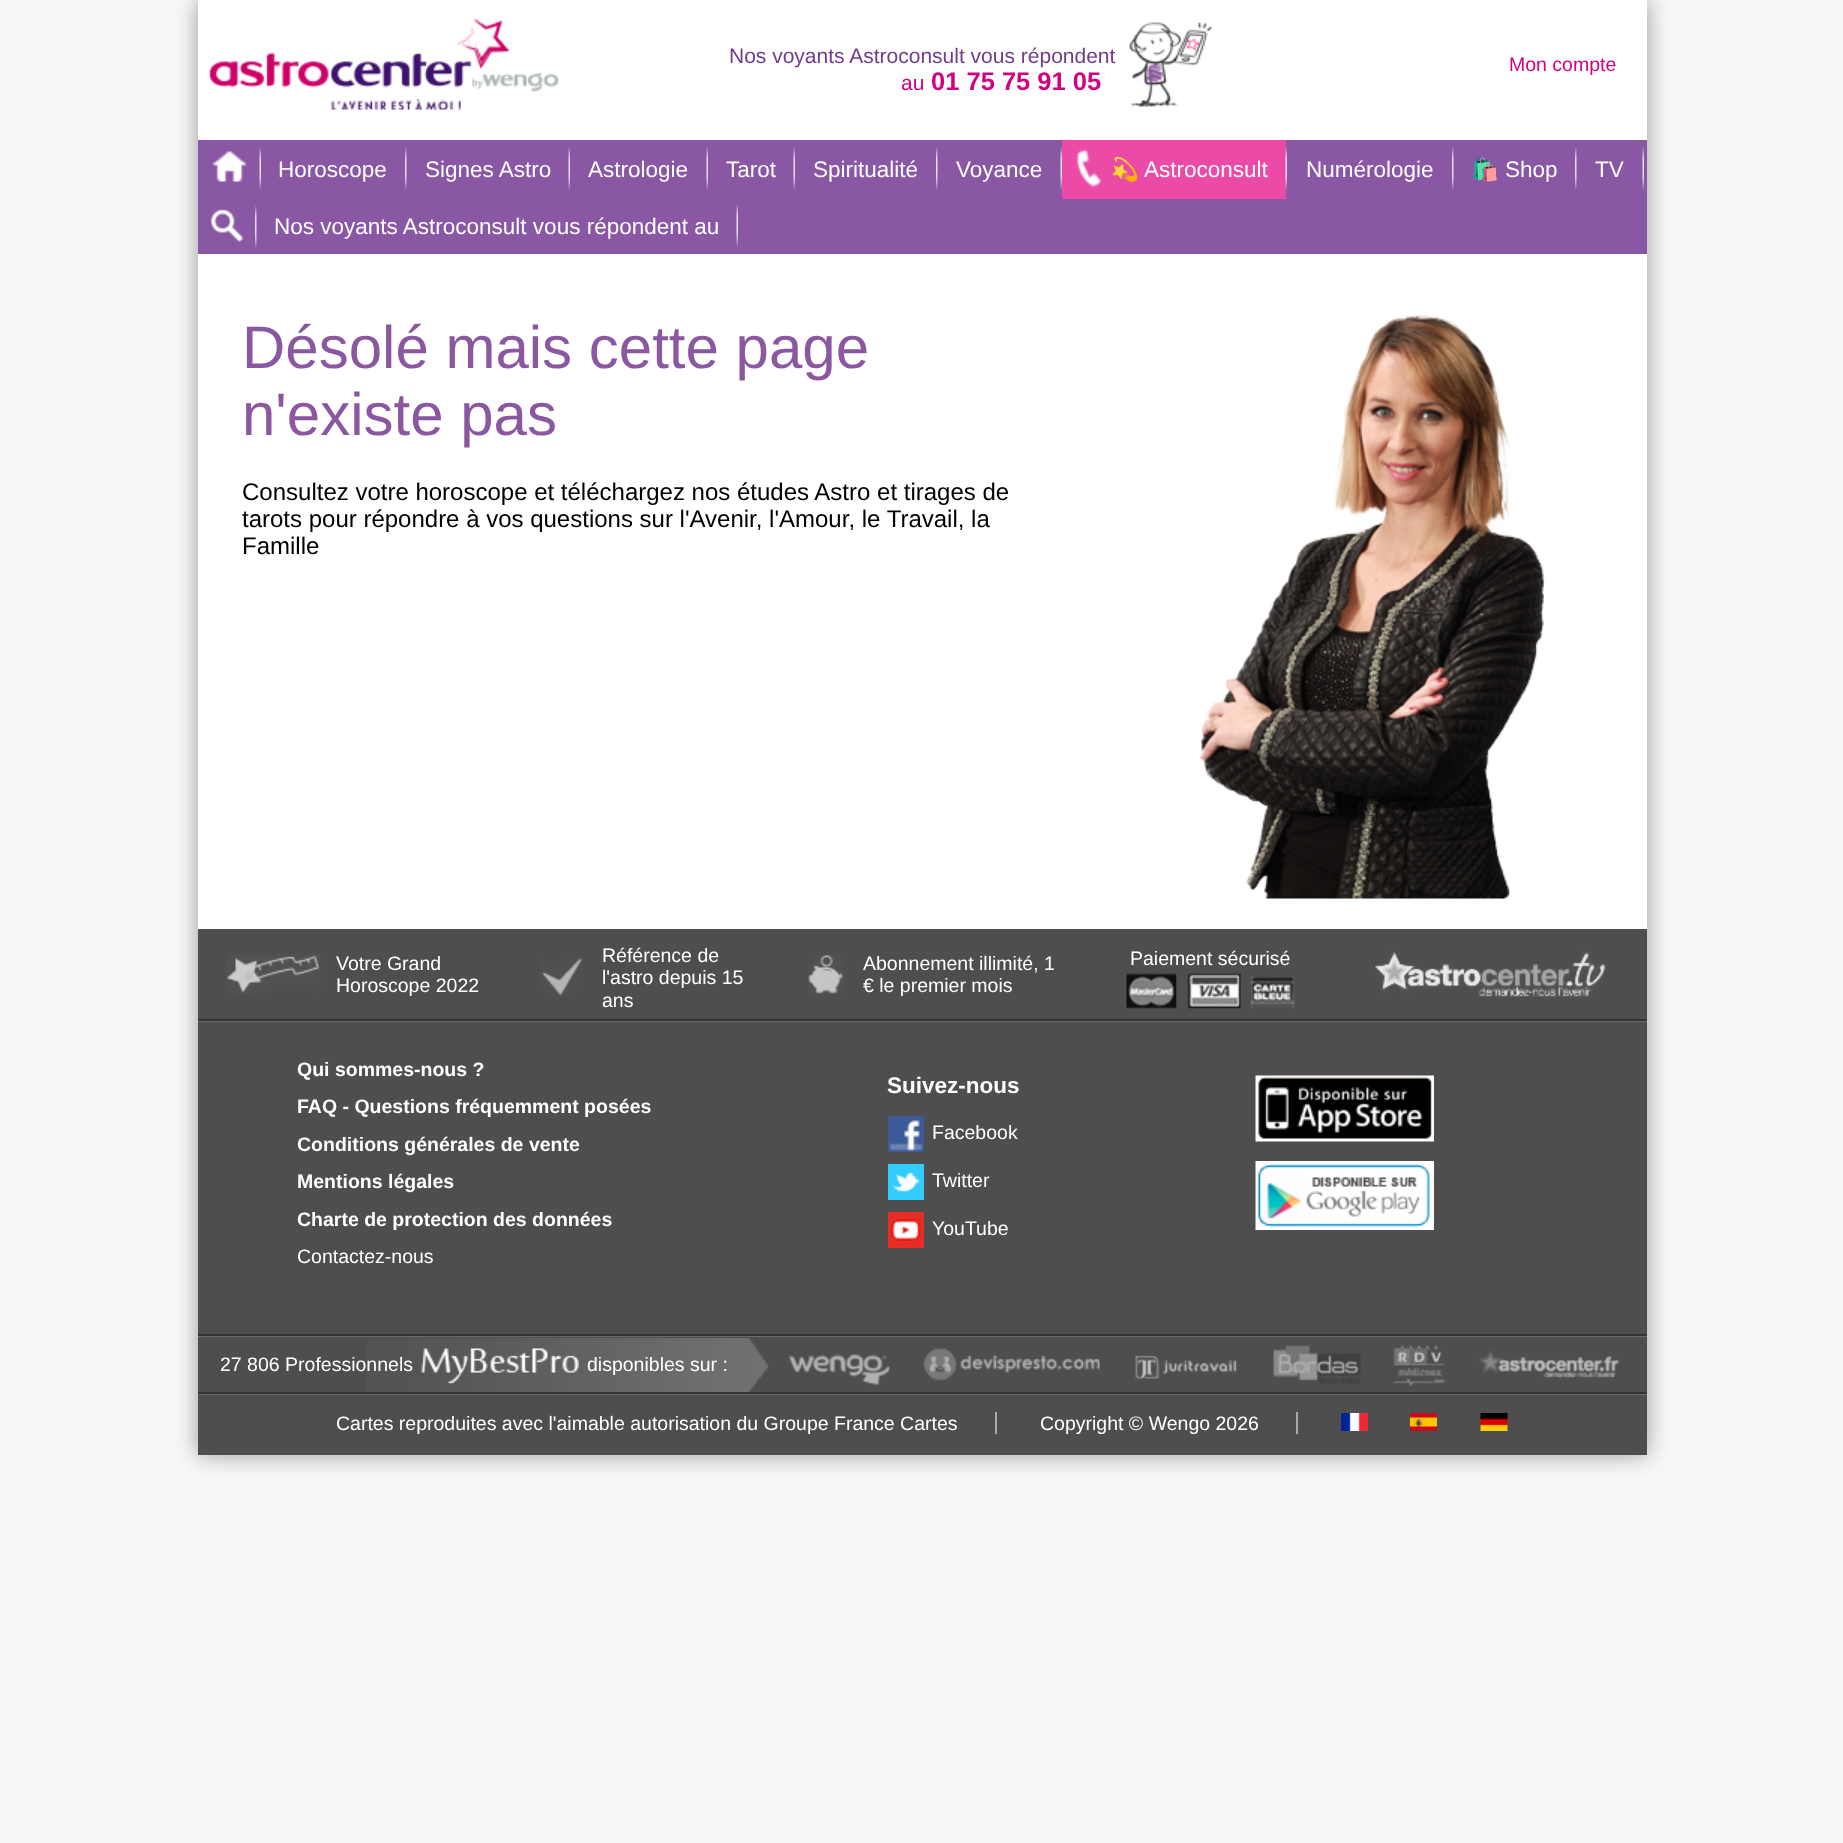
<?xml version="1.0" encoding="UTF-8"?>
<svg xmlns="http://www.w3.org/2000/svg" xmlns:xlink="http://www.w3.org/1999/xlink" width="1843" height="1843">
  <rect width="100%" height="100%" fill="#f7f7f7" />
  <rect x="198" width="1449" height="1455" fill="#999999" filter="blur(11px)" />
  <rect x="198" width="1449" height="140" fill="#ffffff" />
  <image x="209" y="18" width="350" height="93" xlink:href="image1.png" />
  <image x="1129" y="22" width="83" height="85" xlink:href="image2.png" />
  <rect x="198" y="140" width="1449" height="114" fill="#8a57a5" />
  <image x="213" y="151" width="33" height="31" xlink:href="image3.png" />
  <image x="259" y="147" width="2" height="44" xlink:href="image4.png" />
  <image x="405" y="147" width="2" height="44" xlink:href="image5.png" />
  <image x="568" y="147" width="2" height="44" xlink:href="image4.png" />
  <image x="706" y="147" width="2" height="44" xlink:href="image4.png" />
  <image x="793" y="147" width="2" height="44" xlink:href="image4.png" />
  <image x="936" y="147" width="2" height="44" xlink:href="image5.png" />
  <image x="1060" y="147" width="2" height="44" xlink:href="image4.png" />
  <rect x="1062" y="140" width="224" height="59" fill="#eb4aa7" />
  <image x="1076" y="149" width="26" height="39" xlink:href="image6.png" />
  <image x="1285" y="147" width="2" height="44" xlink:href="image7.png" />
  <image x="1452" y="147" width="2" height="44" xlink:href="image5.png" />
  <image x="1575" y="147" width="2" height="44" xlink:href="image5.png" />
  <image x="1642" y="147" width="2" height="44" xlink:href="image4.png" />
  <image x="210" y="209" width="34" height="33" xlink:href="image8.png" />
  <image x="255" y="205" width="2" height="44" xlink:href="image9.png" />
  <image x="736" y="204" width="2" height="44" xlink:href="image4.png" />
  <rect x="198" y="254" width="1449" height="675" fill="#ffffff" />
  <image x="1199" y="315" width="346" height="584" xlink:href="image10.png" />
  <rect x="198" y="929" width="1449" height="526" fill="#4e4e4e" />
  <rect x="198" y="1021" width="1449" height="1" fill="#6a6a6a" />
  <rect x="198" y="1019" width="1449" height="2" fill="#343434" />
  <image x="226" y="954" width="95" height="40" xlink:href="image11.png" />
  <image x="540" y="958" width="43" height="39" xlink:href="image12.png" />
  <image x="808" y="954" width="36" height="40" xlink:href="image13.png" />
  <image x="1126" y="973" width="169" height="36" xlink:href="image14.png" />
  <image x="1375" y="951" width="231" height="47" xlink:href="image15.png" />
  <rect x="198" y="1336" width="1449" height="1" fill="#6a6a6a" />
  <rect x="198" y="1334" width="1449" height="2" fill="#343434" />
  <image x="888" y="1116" width="36" height="36" xlink:href="image16.png" />
  <image x="888" y="1164" width="36" height="36" xlink:href="image17.png" />
  <image x="888" y="1212" width="36" height="36" xlink:href="image18.png" />
  <image x="1255" y="1075" width="179" height="67" xlink:href="image19.png" />
  <image x="1255" y="1161" width="179" height="69" xlink:href="image20.png" />
  <rect x="198" y="1394" width="1449" height="1" fill="#6a6a6a" />
  <rect x="198" y="1392" width="1449" height="2" fill="#343434" />
  <image x="367" y="1338" width="402" height="54" xlink:href="image21.png" />
  <image x="421" y="1348" width="158" height="36" xlink:href="image22.png" />
  <image x="789" y="1354" width="101" height="31" xlink:href="image23.png" />
  <image x="922" y="1348" width="178" height="33" xlink:href="image24.png" />
  <image x="1135" y="1355" width="102" height="24" xlink:href="image25.png" />
  <image x="1273" y="1345" width="88" height="39" xlink:href="image26.png" />
  <image x="1393" y="1345" width="52" height="41" xlink:href="image27.png" />
  <image x="1478" y="1350" width="141" height="28" xlink:href="image28.png" />
  <rect x="995" y="1412" width="2" height="22" fill="#aaaaaa" />
  <rect x="1296" y="1412" width="2" height="22" fill="#aaaaaa" />
  <image x="1341" y="1413" width="27" height="18" xlink:href="image29.png" />
  <image x="1410" y="1413" width="27" height="18" xlink:href="image30.png" />
  <image x="1480" y="1413" width="28" height="18" xlink:href="image31.png" />
  <text x="729" y="63" style="font-family: Liberation Sans; font-size: 21px; fill: #713b8e">Nos voyants Astroconsult vous répondent</text>
  <text x="901" y="90" style="font-family: Liberation Sans; font-size: 21px; fill: #d50081">au</text>
  <text x="931" y="90" style="font-family: Liberation Sans; font-size: 25.5px; font-weight: bold; fill: #d50081">01 75 75 91 05</text>
  <text x="1509" y="71" style="font-family: Liberation Sans; font-size: 19.5px; fill: #d50081">Mon compte</text>
  <text x="278" y="177" style="font-family: Liberation Sans; font-size: 22.5px; fill: #ffffff">Horoscope</text>
  <text x="425" y="177" style="font-family: Liberation Sans; font-size: 22.5px; fill: #ffffff">Signes Astro</text>
  <text x="588" y="177" style="font-family: Liberation Sans; font-size: 22.5px; fill: #ffffff">Astrologie</text>
  <text x="726" y="177" style="font-family: Liberation Sans; font-size: 22.5px; fill: #ffffff">Tarot</text>
  <text x="813" y="177" style="font-family: Liberation Sans; font-size: 22.5px; fill: #ffffff">Spiritualité</text>
  <text x="956" y="177" style="font-family: Liberation Sans; font-size: 22.5px; fill: #ffffff">Voyance</text>
  <text x="1111" y="177" style="font-family: Noto Color Emoji; font-size: 22.5px; fill: #ffffff">💫</text>
  <text x="1144" y="177" style="font-family: Liberation Sans; font-size: 22.5px; fill: #ffffff">Astroconsult</text>
  <text x="1306" y="177" style="font-family: Liberation Sans; font-size: 22.5px; fill: #ffffff">Numérologie</text>
  <text x="1471" y="177" style="font-family: Noto Color Emoji; font-size: 22.5px; fill: #ffffff">🛍️</text>
  <text x="1505" y="177" style="font-family: Liberation Sans; font-size: 22.5px; fill: #ffffff">Shop</text>
  <text x="1595" y="177" style="font-family: Liberation Sans; font-size: 22.5px; fill: #ffffff">TV</text>
  <text x="274" y="234" style="font-family: Liberation Sans; font-size: 22.5px; fill: #ffffff">Nos voyants Astroconsult vous répondent au</text>
  <text x="242" y="368" style="font-family: Liberation Sans; font-size: 60px; fill: #8b57a1">Désolé mais cette page</text>
  <text x="242" y="435" style="font-family: Liberation Sans; font-size: 60px; fill: #8b57a1">n'existe pas</text>
  <text x="242" y="500" style="font-family: Liberation Sans; font-size: 24px; fill: #000000">Consultez votre horoscope et téléchargez nos études Astro et tirages de</text>
  <text x="242" y="527" style="font-family: Liberation Sans; font-size: 24px; fill: #000000">tarots pour répondre à vos questions sur l'Avenir, l'Amour, le Travail, la</text>
  <text x="242" y="554" style="font-family: Liberation Sans; font-size: 24px; fill: #000000">Famille</text>
  <text x="336" y="970" style="font-family: Liberation Sans; font-size: 19.5px; fill: #ffffff">Votre Grand</text>
  <text x="336" y="992" style="font-family: Liberation Sans; font-size: 19.5px; fill: #ffffff">Horoscope 2022</text>
  <text x="602" y="962" style="font-family: Liberation Sans; font-size: 19.5px; fill: #ffffff">Référence de</text>
  <text x="602" y="984" style="font-family: Liberation Sans; font-size: 19.5px; fill: #ffffff">l'astro depuis 15</text>
  <text x="602" y="1007" style="font-family: Liberation Sans; font-size: 19.5px; fill: #ffffff">ans</text>
  <text x="863" y="970" style="font-family: Liberation Sans; font-size: 19.5px; fill: #ffffff">Abonnement illimité, 1</text>
  <text x="863" y="992" style="font-family: Liberation Sans; font-size: 19.5px; fill: #ffffff">€ le premier mois</text>
  <text x="1130" y="965" style="font-family: Liberation Sans; font-size: 19.5px; fill: #ffffff">Paiement sécurisé</text>
  <text x="297" y="1076" style="font-family: Liberation Sans; font-size: 19.5px; font-weight: bold; fill: #ffffff">Qui sommes-nous ?</text>
  <text x="297" y="1113" style="font-family: Liberation Sans; font-size: 19.5px; font-weight: bold; fill: #ffffff">FAQ - Questions fréquemment posées</text>
  <text x="297" y="1151" style="font-family: Liberation Sans; font-size: 19.5px; font-weight: bold; fill: #ffffff">Conditions générales de vente</text>
  <text x="297" y="1188" style="font-family: Liberation Sans; font-size: 19.5px; font-weight: bold; fill: #ffffff">Mentions légales</text>
  <text x="297" y="1226" style="font-family: Liberation Sans; font-size: 19.5px; font-weight: bold; fill: #ffffff">Charte de protection des données</text>
  <text x="297" y="1263" style="font-family: Liberation Sans; font-size: 19.5px; fill: #ffffff">Contactez-nous</text>
  <text x="887" y="1093" style="font-family: Liberation Sans; font-size: 22.5px; font-weight: bold; fill: #ffffff">Suivez-nous</text>
  <text x="932" y="1139" style="font-family: Liberation Sans; font-size: 19.5px; fill: #ffffff">Facebook</text>
  <text x="932" y="1187" style="font-family: Liberation Sans; font-size: 19.5px; fill: #ffffff">Twitter</text>
  <text x="932" y="1235" style="font-family: Liberation Sans; font-size: 19.5px; fill: #ffffff">YouTube</text>
  <text x="220" y="1371" style="font-family: Liberation Sans; font-size: 19.5px; fill: #ffffff">27 806 Professionnels</text>
  <text x="587" y="1371" style="font-family: Liberation Sans; font-size: 19.5px; fill: #ffffff">disponibles sur :</text>
  <text x="336" y="1430" style="font-family: Liberation Sans; font-size: 19.5px; fill: #ffffff">Cartes reproduites avec l'aimable autorisation du Groupe France Cartes</text>
  <text x="1040" y="1430" style="font-family: Liberation Sans; font-size: 19.5px; fill: #ffffff">Copyright © Wengo 2026</text>
</svg>
